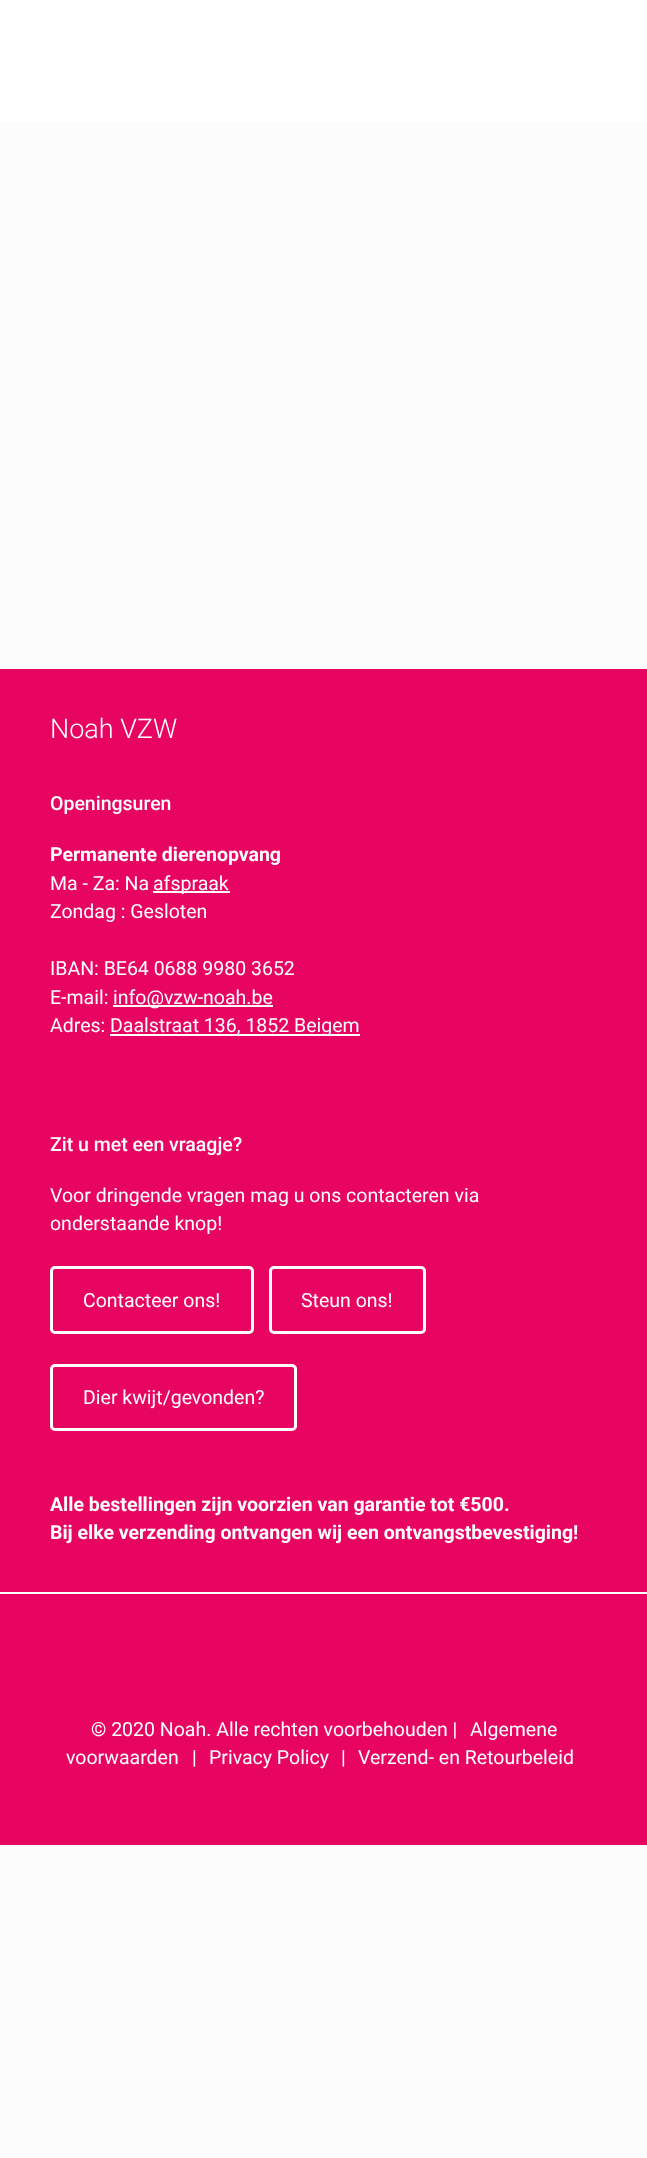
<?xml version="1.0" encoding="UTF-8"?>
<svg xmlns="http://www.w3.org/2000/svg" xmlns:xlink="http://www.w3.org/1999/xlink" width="647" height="2158">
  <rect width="100%" height="100%" fill="#fcfcfc" />
  <rect width="647" height="122" fill="#ffffff" />
  <rect y="669" width="647" height="1176" fill="#e80562" />
  <rect x="153" y="891" width="77" height="2" fill="#ffffff" />
  <rect x="113" y="1005" width="160" height="2" fill="#ffffff" />
  <rect x="110" y="1034" width="250" height="2" fill="#ffffff" />
  <rect x="51.5" y="1267.5" width="201" height="65" rx="3.5" fill="none" stroke="#ffffff" stroke-width="3" />
  <rect x="270.5" y="1267.5" width="154" height="65" rx="3.5" fill="none" stroke="#ffffff" stroke-width="3" />
  <rect x="51.5" y="1365.5" width="244" height="64" rx="3.5" fill="none" stroke="#ffffff" stroke-width="3" />
  <rect y="1592" width="647" height="2" fill="#ffffff" />
  <text x="50" y="738" style="font-family: Roboto; font-size: 27px; font-weight: 300; fill: #ffffff">Noah VZW</text>
  <text x="50" y="810" style="font-family: Roboto; font-size: 19.5px; font-weight: 500; fill: #ffffff">Openingsuren</text>
  <text x="50" y="861" style="font-family: Roboto; font-size: 19.5px; font-weight: bold; fill: #ffffff">Permanente dierenopvang</text>
  <text x="50" y="890" style="font-family: Roboto; font-size: 19.5px; fill: #ffffff">Ma - Za: Na</text>
  <text x="153" y="890" style="font-family: Roboto; font-size: 19.5px; fill: #ffffff">afspraak</text>
  <text x="50" y="918" style="font-family: Roboto; font-size: 19.5px; fill: #ffffff">Zondag : Gesloten</text>
  <text x="50" y="975" style="font-family: Roboto; font-size: 19.5px; fill: #ffffff">IBAN: BE64 0688 9980 3652</text>
  <text x="50" y="1004" style="font-family: Roboto; font-size: 19.5px; fill: #ffffff">E-mail:</text>
  <text x="113" y="1004" style="font-family: Roboto; font-size: 19.5px; fill: #ffffff">info@vzw-noah.be</text>
  <text x="50" y="1032" style="font-family: Roboto; font-size: 19.5px; fill: #ffffff">Adres:</text>
  <text x="110" y="1032" style="font-family: Roboto; font-size: 19.5px; fill: #ffffff">Daalstraat 136, 1852 Beigem</text>
  <text x="50" y="1151" style="font-family: Roboto; font-size: 19.5px; font-weight: 500; fill: #ffffff">Zit u met een vraagje?</text>
  <text x="50" y="1202" style="font-family: Roboto; font-size: 19.5px; fill: #ffffff">Voor dringende vragen mag u ons contacteren via</text>
  <text x="50" y="1230" style="font-family: Roboto; font-size: 19.5px; fill: #ffffff">onderstaande knop!</text>
  <text x="83" y="1307" style="font-family: Roboto; font-size: 19.5px; fill: #ffffff">Contacteer ons!</text>
  <text x="301" y="1307" style="font-family: Roboto; font-size: 19.5px; fill: #ffffff">Steun ons!</text>
  <text x="83" y="1404" style="font-family: Roboto; font-size: 19.5px; fill: #ffffff">Dier kwijt/gevonden?</text>
  <text x="50" y="1511" style="font-family: Roboto; font-size: 19.5px; font-weight: bold; fill: #ffffff">Alle bestellingen zijn voorzien van garantie tot €500.</text>
  <text x="50" y="1539" style="font-family: Roboto; font-size: 19.5px; font-weight: bold; fill: #ffffff">Bij elke verzending ontvangen wij een ontvangstbevestiging!</text>
  <text x="91" y="1736" style="font-family: Roboto; font-size: 19.5px; fill: #ffffff">© 2020 Noah. Alle rechten voorbehouden |</text>
  <text x="470" y="1736" style="font-family: Roboto; font-size: 19.5px; fill: #ffffff">Algemene</text>
  <text x="66" y="1764" style="font-family: Roboto; font-size: 19.5px; fill: #ffffff">voorwaarden</text>
  <text x="192" y="1764" style="font-family: Roboto; font-size: 19.5px; fill: #ffffff">|</text>
  <text x="209" y="1764" style="font-family: Roboto; font-size: 19.5px; fill: #ffffff">Privacy Policy</text>
  <text x="341" y="1764" style="font-family: Roboto; font-size: 19.5px; fill: #ffffff">|</text>
  <text x="358" y="1764" style="font-family: Roboto; font-size: 19.5px; fill: #ffffff">Verzend- en Retourbeleid</text>
</svg>
